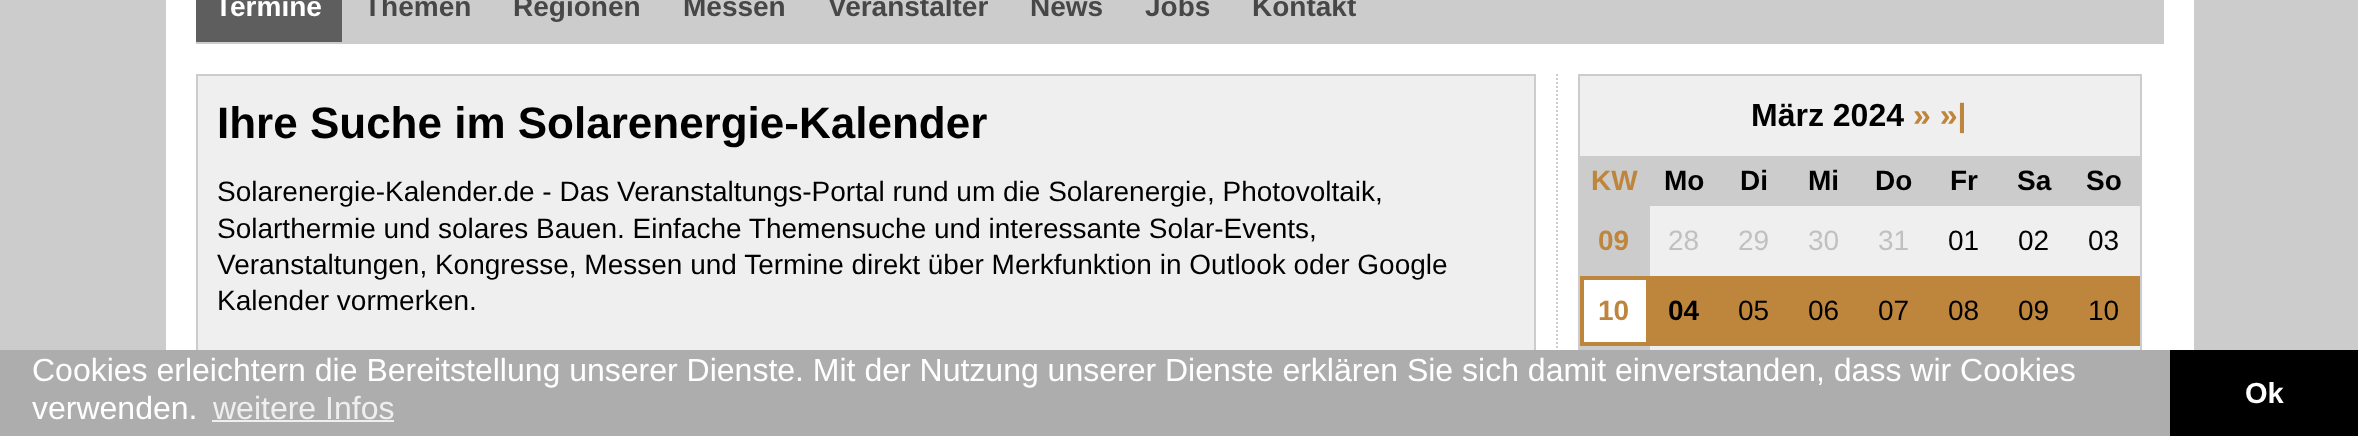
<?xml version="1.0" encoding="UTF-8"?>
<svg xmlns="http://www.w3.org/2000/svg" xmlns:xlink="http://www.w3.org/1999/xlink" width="2358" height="436">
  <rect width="100%" height="100%" fill="#cccccc" />
  <rect x="166" width="2028" height="350" fill="#ffffff" />
  <rect x="196" width="1968" height="44" fill="#cccccc" />
  <rect x="196" width="146" height="42" fill="#5e5e5e" />
  <rect x="198" y="76" width="1336" height="274" fill="#efefef" />
  <rect x="196" y="74" width="1340" height="2" fill="#cccccc" />
  <rect x="1534" y="74" width="2" height="282" fill="#cccccc" />
  <rect x="196" y="74" width="2" height="282" fill="#cccccc" />
  <path d="M 1557 74 v 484" fill="none" stroke="#cccccc" stroke-width="2" stroke-dasharray="2 2" />
  <rect x="1580" y="76" width="560" height="274" fill="#efefef" />
  <rect x="1579" y="75" width="562" height="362" fill="none" stroke="#cccccc" stroke-width="2" />
  <rect x="1580" y="156" width="560" height="50" fill="#cccccc" />
  <rect x="1580" y="206" width="70" height="70" fill="#cccccc" />
  <rect x="1582" y="278" width="66" height="66" fill="#ffffff" stroke="#be863d" stroke-width="4" />
  <rect x="1650" y="276" width="490" height="70" fill="#be863d" />
  <rect x="1580" y="346" width="70" height="4" fill="#cccccc" />
  <rect y="350" width="2170" height="86" fill="#adadad" />
  <rect x="212" y="420" width="182" height="2" fill="#efefef" />
  <rect x="2170" y="350" width="188" height="86" fill="#000000" />
  <text x="215" y="16" style="font-family: Liberation Sans; font-size: 28px; font-weight: bold; fill: #ffffff">Termine</text>
  <text x="364" y="16" style="font-family: Liberation Sans; font-size: 28px; font-weight: bold; fill: #474747">Themen</text>
  <text x="513" y="16" style="font-family: Liberation Sans; font-size: 28px; font-weight: bold; fill: #474747">Regionen</text>
  <text x="683" y="16" style="font-family: Liberation Sans; font-size: 28px; font-weight: bold; fill: #474747">Messen</text>
  <text x="828" y="16" style="font-family: Liberation Sans; font-size: 28px; font-weight: bold; fill: #474747">Veranstalter</text>
  <text x="1030" y="16" style="font-family: Liberation Sans; font-size: 28px; font-weight: bold; fill: #474747">News</text>
  <text x="1145" y="16" style="font-family: Liberation Sans; font-size: 28px; font-weight: bold; fill: #474747">Jobs</text>
  <text x="1252" y="16" style="font-family: Liberation Sans; font-size: 28px; font-weight: bold; fill: #474747">Kontakt</text>
  <text x="217" y="138" style="font-family: Liberation Sans; font-size: 44px; font-weight: bold; fill: #000000">Ihre Suche im Solarenergie-Kalender</text>
  <text x="217" y="201" style="font-family: Liberation Sans; font-size: 28px; fill: #000000">Solarenergie-Kalender.de - Das Veranstaltungs-Portal rund um die Solarenergie, Photovoltaik,</text>
  <text x="217" y="238" style="font-family: Liberation Sans; font-size: 28px; fill: #000000">Solarthermie und solares Bauen. Einfache Themensuche und interessante Solar-Events,</text>
  <text x="217" y="274" style="font-family: Liberation Sans; font-size: 28px; fill: #000000">Veranstaltungen, Kongresse, Messen und Termine direkt über Merkfunktion in Outlook oder Google</text>
  <text x="217" y="310" style="font-family: Liberation Sans; font-size: 28px; fill: #000000">Kalender vormerken.</text>
  <text x="1751" y="126" style="font-family: Liberation Sans; font-size: 32px; font-weight: bold; fill: #000000">März 2024</text>
  <text x="1913" y="126" style="font-family: Liberation Sans; font-size: 32px; font-weight: bold; fill: #be863d">» »|</text>
  <text x="1591" y="190" style="font-family: Liberation Sans; font-size: 28px; font-weight: bold; fill: #be863d">KW</text>
  <text x="1664" y="190" style="font-family: Liberation Sans; font-size: 28px; font-weight: bold; fill: #000000">Mo</text>
  <text x="1740" y="190" style="font-family: Liberation Sans; font-size: 28px; font-weight: bold; fill: #000000">Di</text>
  <text x="1808" y="190" style="font-family: Liberation Sans; font-size: 28px; font-weight: bold; fill: #000000">Mi</text>
  <text x="1875" y="190" style="font-family: Liberation Sans; font-size: 28px; font-weight: bold; fill: #000000">Do</text>
  <text x="1950" y="190" style="font-family: Liberation Sans; font-size: 28px; font-weight: bold; fill: #000000">Fr</text>
  <text x="2017" y="190" style="font-family: Liberation Sans; font-size: 28px; font-weight: bold; fill: #000000">Sa</text>
  <text x="2086" y="190" style="font-family: Liberation Sans; font-size: 28px; font-weight: bold; fill: #000000">So</text>
  <text x="1598" y="250" style="font-family: Liberation Sans; font-size: 28px; font-weight: bold; fill: #be863d">09</text>
  <text x="1668" y="250" style="font-family: Liberation Sans; font-size: 28px; fill: #c0c0c0">28</text>
  <text x="1738" y="250" style="font-family: Liberation Sans; font-size: 28px; fill: #c0c0c0">29</text>
  <text x="1808" y="250" style="font-family: Liberation Sans; font-size: 28px; fill: #c0c0c0">30</text>
  <text x="1878" y="250" style="font-family: Liberation Sans; font-size: 28px; fill: #c0c0c0">31</text>
  <text x="1948" y="250" style="font-family: Liberation Sans; font-size: 28px; fill: #000000">01</text>
  <text x="2018" y="250" style="font-family: Liberation Sans; font-size: 28px; fill: #000000">02</text>
  <text x="2088" y="250" style="font-family: Liberation Sans; font-size: 28px; fill: #000000">03</text>
  <text x="1598" y="320" style="font-family: Liberation Sans; font-size: 28px; font-weight: bold; fill: #be863d">10</text>
  <text x="1668" y="320" style="font-family: Liberation Sans; font-size: 28px; font-weight: bold; fill: #000000">04</text>
  <text x="1738" y="320" style="font-family: Liberation Sans; font-size: 28px; fill: #000000">05</text>
  <text x="1808" y="320" style="font-family: Liberation Sans; font-size: 28px; fill: #000000">06</text>
  <text x="1878" y="320" style="font-family: Liberation Sans; font-size: 28px; fill: #000000">07</text>
  <text x="1948" y="320" style="font-family: Liberation Sans; font-size: 28px; fill: #000000">08</text>
  <text x="2018" y="320" style="font-family: Liberation Sans; font-size: 28px; fill: #000000">09</text>
  <text x="2088" y="320" style="font-family: Liberation Sans; font-size: 28px; fill: #000000">10</text>
  <text x="32" y="381" style="font-family: Liberation Sans; font-size: 32px; fill: #ffffff">Cookies erleichtern die Bereitstellung unserer Dienste. Mit der Nutzung unserer Dienste erklären Sie sich damit einverstanden, dass wir Cookies</text>
  <text x="32" y="419" style="font-family: Liberation Sans; font-size: 32px; fill: #ffffff">verwenden.</text>
  <text x="213" y="419" style="font-family: Liberation Sans; font-size: 32px; fill: #efefef">weitere Infos</text>
  <text x="2245" y="403" style="font-family: Liberation Sans; font-size: 29px; font-weight: bold; fill: #ffffff">Ok</text>
</svg>
